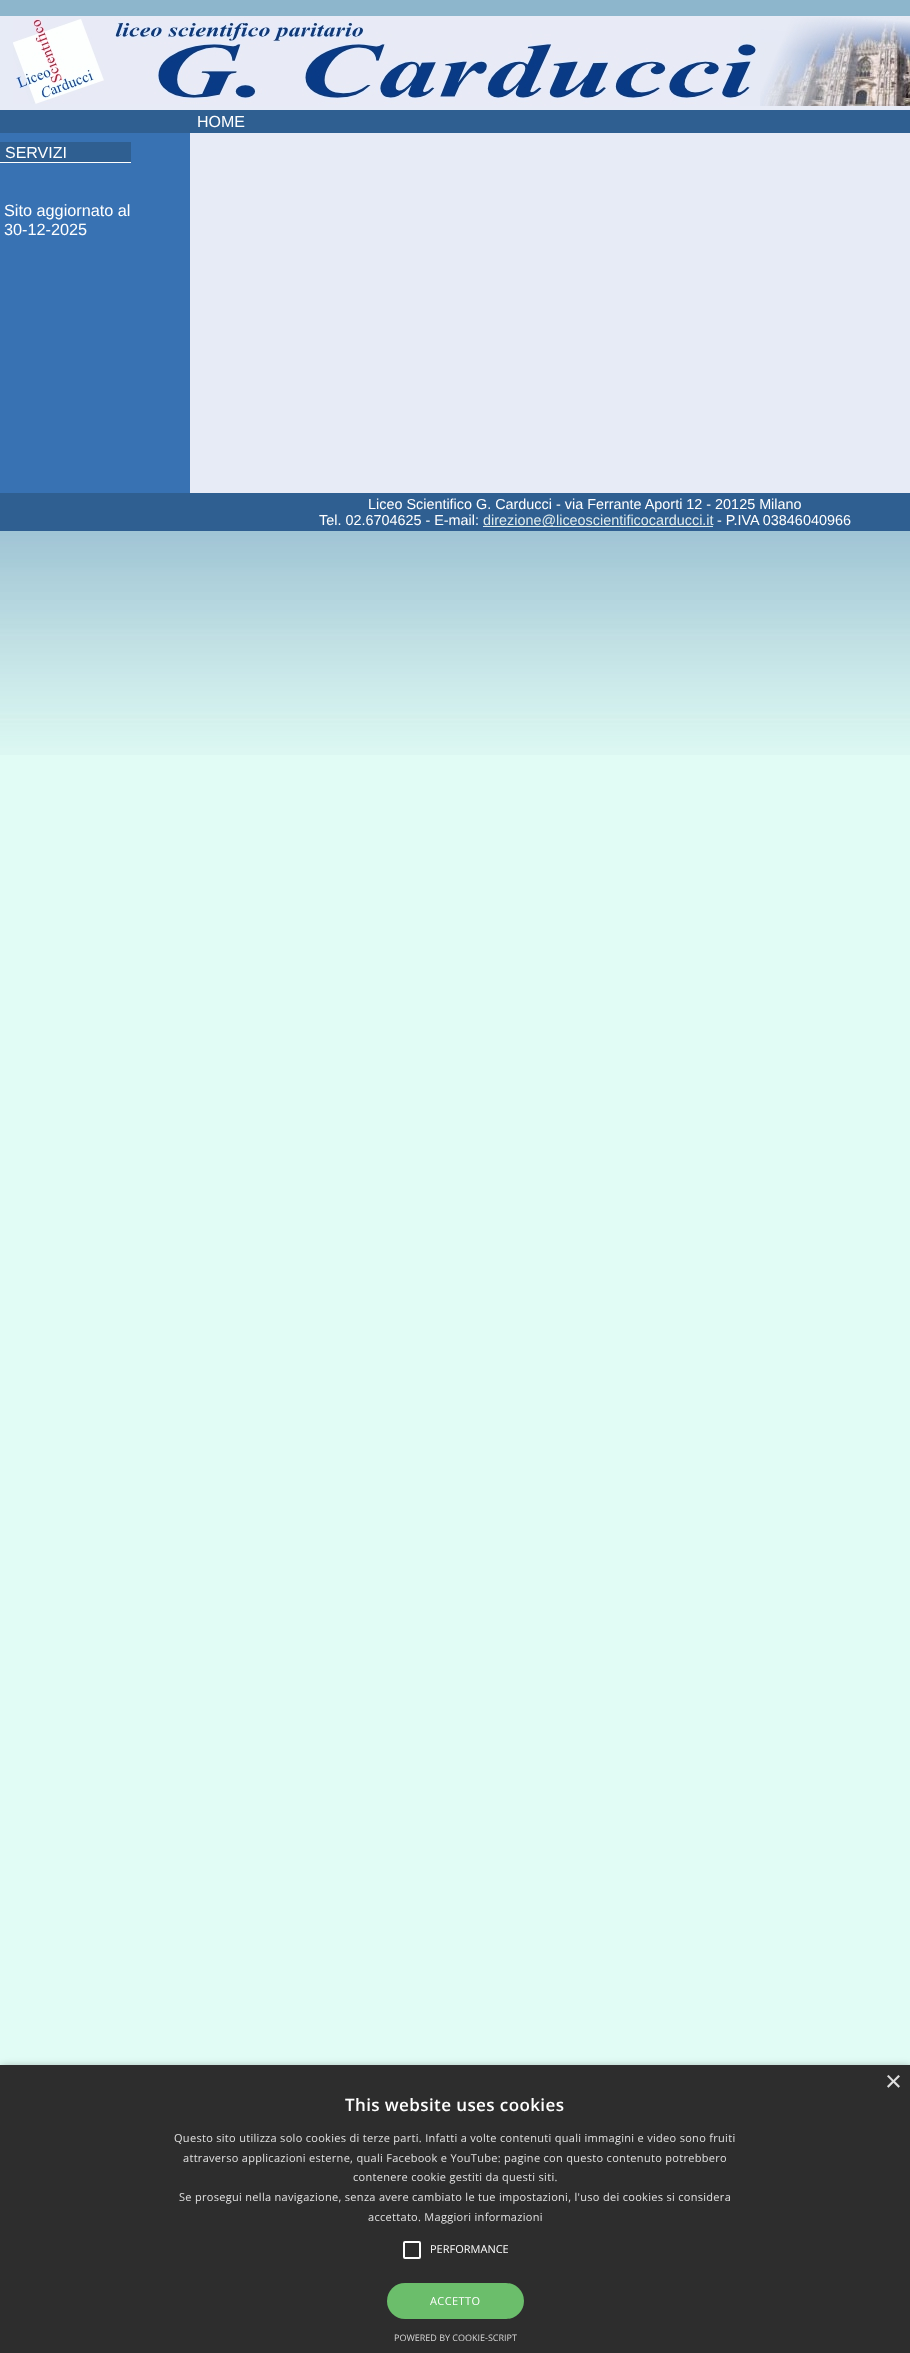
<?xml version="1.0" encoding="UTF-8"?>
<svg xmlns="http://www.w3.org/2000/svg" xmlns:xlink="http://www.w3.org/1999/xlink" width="910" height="2353">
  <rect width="100%" height="100%" fill="#e1fcf5" />
  <image x="0" y="0" width="910" height="755" xlink:href="image1.png" />
  <rect y="16" width="910" height="94" fill="#e7ebf6" />
  <image x="13" y="18" width="177" height="86" xlink:href="image2.png" />
  <image x="190" y="17" width="720" height="89" xlink:href="image3.png" />
  <rect y="110" width="910" height="23" fill="#2f5f91" />
  <rect y="133" width="190" height="360" fill="#3872b3" />
  <rect y="142" width="131" height="20" fill="#2f5f91" />
  <rect y="162" width="131" height="1" fill="#ffffff" />
  <rect x="190" y="133" width="720" height="360" fill="#e7ebf6" />
  <rect y="493" width="910" height="38" fill="#2f5f91" />
  <rect x="483" y="526" width="230" height="1" fill="#e1eded" />
  <rect x="1" y="2067" width="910" height="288" fill="#000000" fill-opacity="0.35" filter="blur(4px)" />
  <rect y="2065" width="910" height="288" fill="#2d2d2d" />
  <rect x="404" y="2242" width="16" height="16" rx="1" fill="none" stroke="#ffffff" stroke-width="2" />
  <rect x="387" y="2283" width="137" height="36" rx="18" fill="#6bbe6b" />
  <text x="197" y="127" style="font-family: Liberation Sans; font-size: 16px; fill: #ffffff">HOME</text>
  <text x="5" y="158" style="font-family: Liberation Sans; font-size: 16px; fill: #ffffff">SERVIZI</text>
  <text x="4" y="216" style="font-family: Liberation Sans; font-size: 16.25px; fill: #ffffff">Sito aggiornato al</text>
  <text x="4" y="235" style="font-family: Liberation Sans; font-size: 16.25px; fill: #ffffff">30-12-2025</text>
  <text x="368" y="509" style="font-family: Liberation Sans; font-size: 14.4px; fill: #ffffff">Liceo Scientifico G. Carducci - via Ferrante Aporti 12 - 20125 Milano</text>
  <text x="319" y="525" style="font-family: Liberation Sans; font-size: 14.4px; fill: #ffffff">Tel. 02.6704625 - E-mail:</text>
  <text x="483" y="525" style="font-family: Liberation Sans; font-size: 14.4px; fill: #e1eded">direzione@liceoscientificocarducci.it</text>
  <text x="717" y="525" style="font-family: Liberation Sans; font-size: 14.4px; fill: #ffffff">- P.IVA 03846040966</text>
  <text x="885" y="2091" style="font-family: Liberation Sans; font-size: 29px; fill: #e0e0e0">×</text>
  <text x="345" y="2111" style="font-family: Open Sans; font-size: 17px; font-weight: 600; letter-spacing: 0.4px; fill: #ffffff">This website uses cookies</text>
  <text x="174" y="2142" style="font-family: Open Sans; font-size: 11px; letter-spacing: 0.3px; fill: #e0e0e0">Questo sito utilizza solo cookies di terze parti. Infatti a volte contenuti quali immagini e video sono fruiti</text>
  <text x="183" y="2162" style="font-family: Open Sans; font-size: 11px; letter-spacing: 0.3px; fill: #e0e0e0">attraverso applicazioni esterne, quali Facebook e YouTube: pagine con questo contenuto potrebbero</text>
  <text x="353" y="2181" style="font-family: Open Sans; font-size: 11px; letter-spacing: 0.3px; fill: #e0e0e0">contenere cookie gestiti da questi siti.</text>
  <text x="179" y="2201" style="font-family: Open Sans; font-size: 11px; letter-spacing: 0.3px; fill: #e0e0e0">Se prosegui nella navigazione, senza avere cambiato le tue impostazioni, l'uso dei cookies si considera</text>
  <text x="368" y="2221" style="font-family: Open Sans; font-size: 11px; letter-spacing: 0.3px; fill: #e0e0e0">accettato. Maggiori informazioni</text>
  <text x="430" y="2253" style="font-family: Open Sans; font-size: 11px; fill: #ffffff">PERFORMANCE</text>
  <text x="430" y="2305" style="font-family: Open Sans; font-size: 11px; letter-spacing: 0.4px; fill: #ffffff">ACCETTO</text>
  <text x="394" y="2341" style="font-family: Open Sans; font-size: 9px; fill: #d5d5d5">POWERED BY COOKIE-SCRIPT</text>
</svg>
